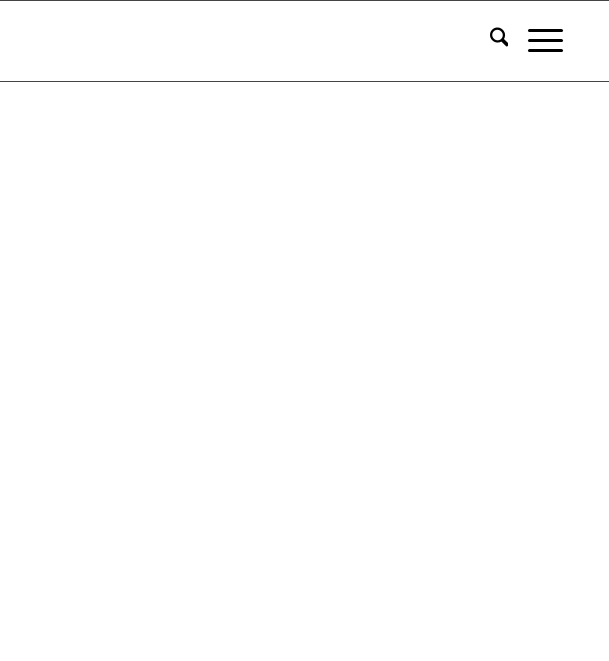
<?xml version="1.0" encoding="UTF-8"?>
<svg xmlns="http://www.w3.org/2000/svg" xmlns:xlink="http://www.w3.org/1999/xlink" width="609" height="661">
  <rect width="100%" height="100%" fill="#ffffff" />
  <rect width="609" height="1" fill="#444444" />
  <rect y="81" width="609" height="1" fill="#444444" />
  <image x="490" y="27" width="18" height="20" xlink:href="image1.png" />
  <rect x="528" y="39" width="35" height="3" rx="1.5" fill="#000000" />
  <rect x="528" y="29" width="35" height="3" rx="1.5" fill="#000000" />
  <rect x="528" y="49" width="35" height="3" rx="1.5" fill="#000000" />
</svg>
